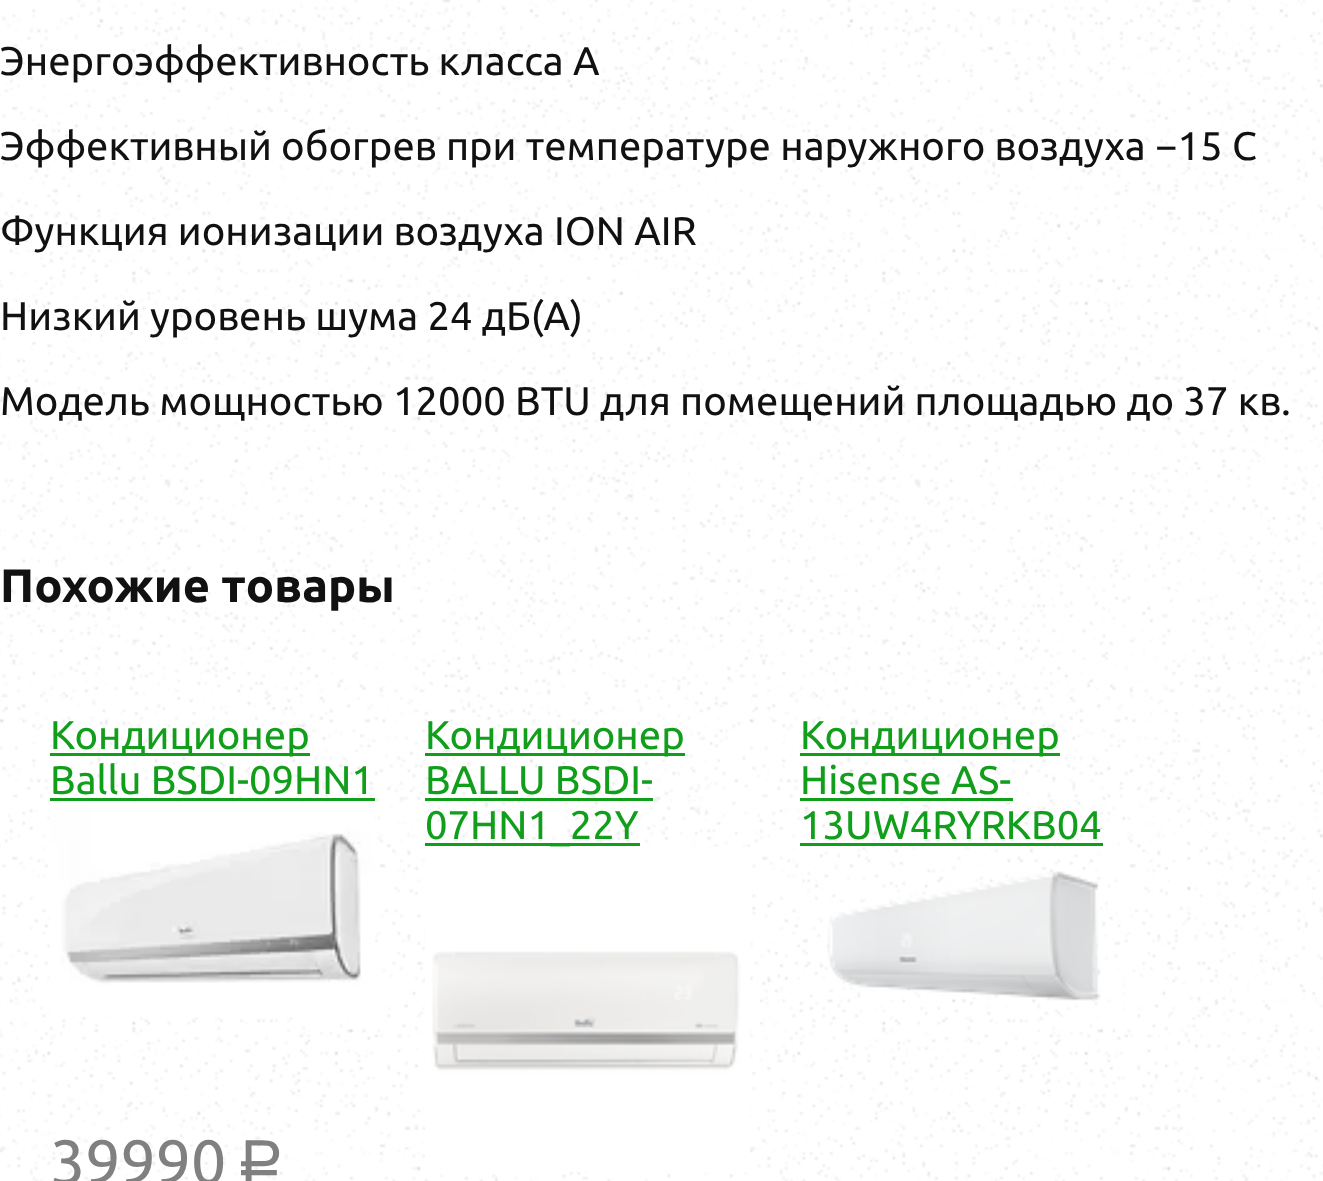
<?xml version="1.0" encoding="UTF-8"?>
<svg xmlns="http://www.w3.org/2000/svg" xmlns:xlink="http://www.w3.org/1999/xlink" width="1323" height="1181">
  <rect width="100%" height="100%" fill="#ffffff" />
  <image x="0" y="0" width="1323" height="1181" xlink:href="image1.png" />
  <rect x="50" y="753" width="260" height="3" fill="#119e1b" />
  <rect x="50" y="798" width="325" height="3" fill="#119e1b" />
  <image x="50" y="802" width="325" height="215" xlink:href="image2.png" />
  <rect x="425" y="753" width="260" height="3" fill="#119e1b" />
  <rect x="425" y="798" width="228" height="3" fill="#119e1b" />
  <rect x="425" y="843" width="215" height="3" fill="#119e1b" />
  <image x="425" y="847" width="325" height="325" xlink:href="image3.png" />
  <rect x="800" y="753" width="260" height="3" fill="#119e1b" />
  <rect x="800" y="798" width="213" height="3" fill="#119e1b" />
  <rect x="800" y="843" width="303" height="3" fill="#119e1b" />
  <image x="827" y="871" width="274" height="130" xlink:href="image4.png" />
  <text x="0" y="75" style="font-family: Ubuntu; font-size: 40px; fill: #111111">Энергоэффективность класса А</text>
  <text x="0" y="160" style="font-family: Ubuntu; font-size: 40px; fill: #111111">Эффективный обогрев при температуре наружного воздуха −15 C</text>
  <text x="0" y="245" style="font-family: Ubuntu; font-size: 40px; fill: #111111">Функция ионизации воздуха ION AIR</text>
  <text x="0" y="330" style="font-family: Ubuntu; font-size: 40px; fill: #111111">Низкий уровень шума 24 дБ(А)</text>
  <text x="0" y="415" style="font-family: Ubuntu; font-size: 40px; fill: #111111">Модель мощностью 12000 ВТU для помещений площадью до 37 кв.</text>
  <text x="0" y="602" style="font-family: Ubuntu; font-size: 46.75px; font-weight: bold; fill: #111111">Похожие товары</text>
  <text x="50" y="749" style="font-family: Ubuntu; font-size: 40px; fill: #119e1b">Кондиционер</text>
  <text x="50" y="794" style="font-family: Ubuntu; font-size: 40px; fill: #119e1b">Ballu BSDI-09HN1</text>
  <text x="50" y="1184" style="font-family: Ubuntu; font-size: 62.5px; fill: #808080">39990</text>
  <text x="236" y="1184" style="font-family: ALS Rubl; font-size: 62.5px; fill: #808080">a</text>
  <text x="425" y="749" style="font-family: Ubuntu; font-size: 40px; fill: #119e1b">Кондиционер</text>
  <text x="425" y="794" style="font-family: Ubuntu; font-size: 40px; fill: #119e1b">BALLU BSDI-</text>
  <text x="425" y="839" style="font-family: Ubuntu; font-size: 40px; fill: #119e1b">07HN1_22Y</text>
  <text x="800" y="749" style="font-family: Ubuntu; font-size: 40px; fill: #119e1b">Кондиционер</text>
  <text x="800" y="794" style="font-family: Ubuntu; font-size: 40px; fill: #119e1b">Hisense AS-</text>
  <text x="800" y="839" style="font-family: Ubuntu; font-size: 40px; fill: #119e1b">13UW4RYRKB04</text>
</svg>
